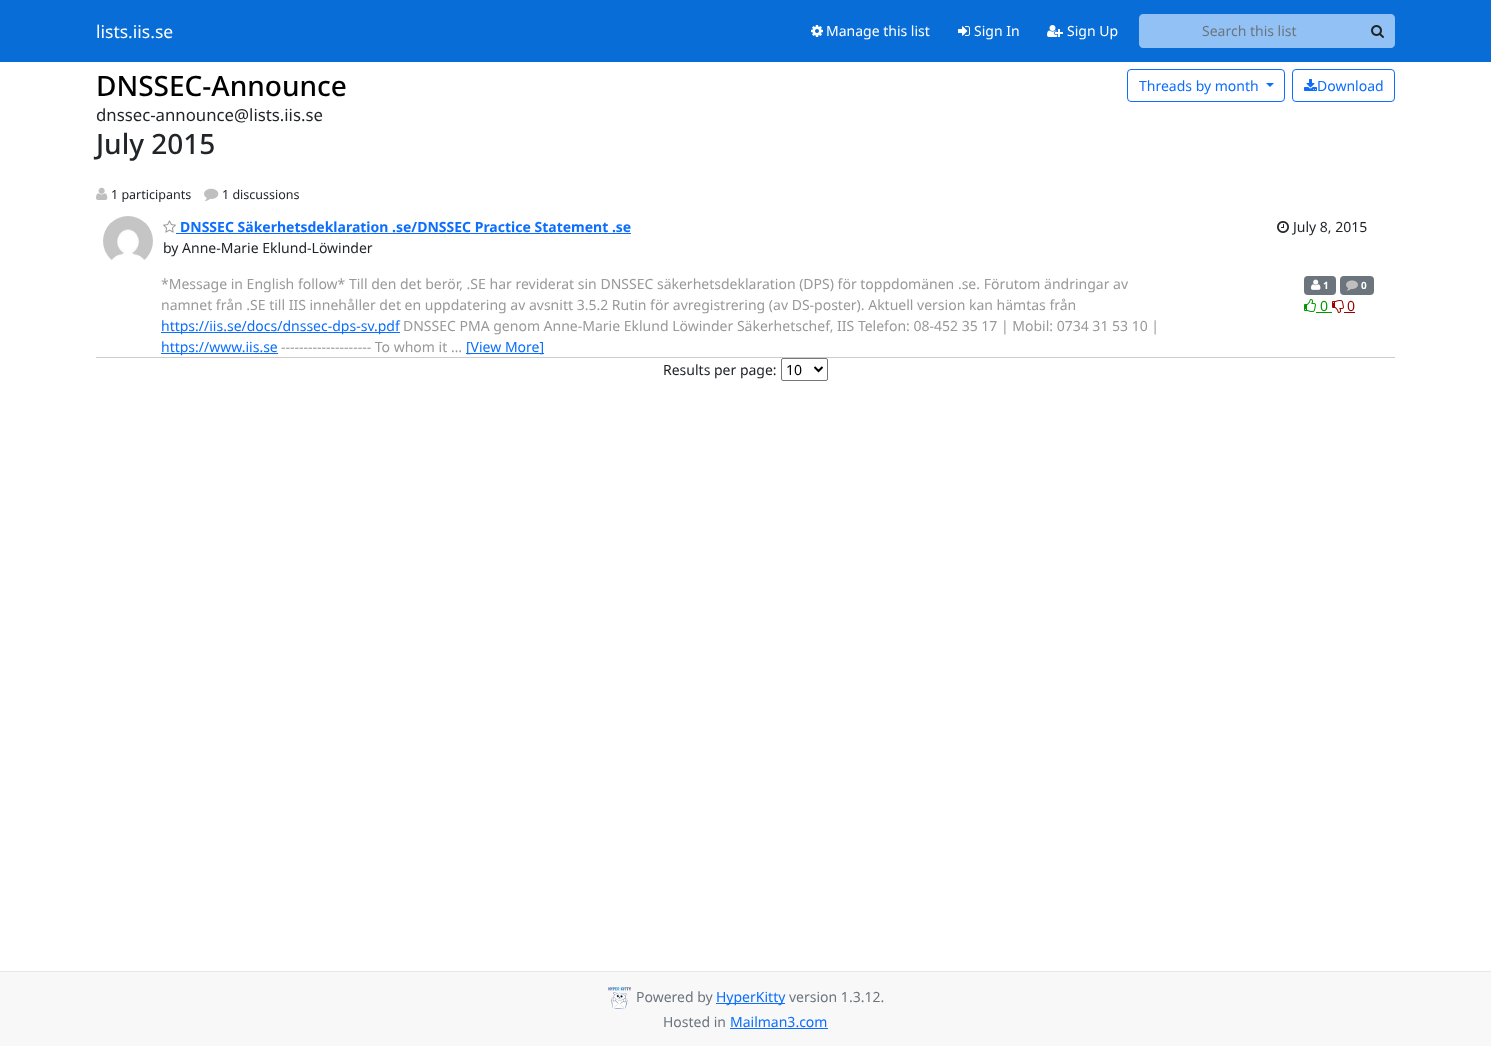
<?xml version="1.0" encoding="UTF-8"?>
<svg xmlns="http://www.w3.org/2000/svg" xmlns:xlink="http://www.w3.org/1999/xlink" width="1491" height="1046">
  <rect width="100%" height="100%" fill="#ffffff" />
  <rect width="1491" height="62" fill="#086dd7" />
  <image x="811" y="25" width="12" height="12" xlink:href="image1.png" />
  <image x="958" y="26" width="12" height="10" xlink:href="image2.png" />
  <image x="1047" y="25" width="16" height="12" xlink:href="image3.png" />
  <path d="M 1143 14 h 217 v 34 h -217 c -2 0 -4 -2 -4 -4 v -26 c 0 -2 2 -4 4 -4 z" fill="#92c2f5" />
  <path d="M 1359 14 h 32 c 2 0 4 2 4 4 v 26 c 0 2 -2 4 -4 4 h -32 z" fill="#92c2f5" />
  <image x="1371" y="25" width="13" height="13" xlink:href="image4.png" />
  <rect x="1127.5" y="69.5" width="157" height="32" rx="3.5" fill="none" stroke="#0d6efd" />
  <path d="M 1266 83 h 8 l -4 4 z" fill="#0d6efd" />
  <rect x="1292.5" y="69.5" width="102" height="32" rx="3.5" fill="none" stroke="#0d6efd" />
  <image x="1304" y="79" width="13" height="12" xlink:href="image5.png" />
  <image x="96" y="187" width="12" height="13" xlink:href="image6.png" />
  <image x="204" y="188" width="15" height="13" xlink:href="image7.png" />
  <rect x="96" y="357" width="1299" height="1" fill="#cccccc" />
  <image x="103" y="216" width="50" height="44" xlink:href="image8.png" />
  <image x="163" y="220" width="13" height="13" xlink:href="image9.png" />
  <rect x="176" y="233" width="455" height="1" fill="#0d6efd" />
  <image x="1277" y="221" width="12" height="12" xlink:href="image10.png" />
  <rect x="161" y="332" width="239" height="1" fill="#0d6efd" />
  <rect x="161" y="353" width="117" height="1" fill="#0d6efd" />
  <rect x="466" y="353" width="78" height="1" fill="#0d6efd" />
  <rect x="1304" y="276" width="32" height="19" rx="4" fill="#6c757d" />
  <image x="1311" y="279" width="10" height="11" xlink:href="image11.png" />
  <rect x="1340" y="276" width="34" height="19" rx="4" fill="#6c757d" />
  <image x="1346" y="280" width="12" height="11" xlink:href="image12.png" />
  <image x="1304" y="299" width="12" height="13" xlink:href="image13.png" />
  <rect x="1316" y="312" width="16" height="1" fill="#009900" />
  <image x="1332" y="300" width="12" height="13" xlink:href="image14.png" />
  <rect x="1344" y="312" width="11" height="1" fill="#990000" />
  <rect x="781.5" y="358.5" width="46" height="22" rx="1.5" fill="none" stroke="#767676" />
  <path d="M 814.5 367 l 4 4 l 4 -4" fill="none" stroke="#000000" stroke-width="2" />
  <rect y="972" width="1491" height="74" fill="#f8f8f8" />
  <rect y="971" width="1491" height="1" fill="#e7e7e7" />
  <image x="608" y="987" width="23" height="23" xlink:href="image15.png" />
  <rect x="716" y="1003" width="69" height="1" fill="#0d6efd" />
  <rect x="730" y="1028" width="98" height="1" fill="#0d6efd" />
  <text x="96" y="38" style="font-family: Noto Sans; font-size: 17.5px; fill: #ffffff">lists.iis.se</text>
  <text x="826" y="36" style="font-family: Noto Sans; font-size: 14px; fill: #ffffff">Manage this list</text>
  <text x="974" y="36" style="font-family: Noto Sans; font-size: 14px; fill: #ffffff">Sign In</text>
  <text x="1067" y="36" style="font-family: Noto Sans; font-size: 14px; fill: #ffffff">Sign Up</text>
  <text x="1202" y="36" style="font-family: Noto Sans; font-size: 14px; fill: #6c757d">Search this list</text>
  <text x="96" y="96" style="font-family: Noto Sans; font-size: 28px; font-weight: 500; fill: #000000">DNSSEC-Announce</text>
  <text x="1139" y="91" style="font-family: Noto Sans; font-size: 14px; fill: #0d6efd">Threads by month</text>
  <text x="1317" y="91" style="font-family: Noto Sans; font-size: 14px; fill: #0d6efd">Download</text>
  <text x="96" y="121" style="font-family: Noto Sans; font-size: 16.75px; fill: #212529">dnssec-announce@lists.iis.se</text>
  <text x="96" y="154" style="font-family: Noto Sans; font-size: 28px; font-weight: 500; fill: #212529">July 2015</text>
  <text x="111" y="199" style="font-family: Noto Sans; font-size: 12.5px; fill: #212529">1 participants</text>
  <text x="222" y="199" style="font-family: Noto Sans; font-size: 12.5px; fill: #212529">1 discussions</text>
  <text x="180" y="232" style="font-family: Noto Sans; font-size: 14px; font-weight: bold; fill: #0d6efd">DNSSEC Säkerhetsdeklaration .se/DNSSEC Practice Statement .se</text>
  <text x="163" y="253" style="font-family: Noto Sans; font-size: 14px; fill: #212529">by Anne-Marie Eklund-Löwinder</text>
  <text x="1293" y="232" style="font-family: Noto Sans; font-size: 14px; fill: #212529">July 8, 2015</text>
  <text x="161" y="289" style="font-family: Noto Sans; font-size: 14px; fill: #999999">*Message in English follow* Till den det berör, .SE har reviderat sin DNSSEC säkerhetsdeklaration (DPS) för toppdomänen .se. Förutom ändringar av</text>
  <text x="161" y="310" style="font-family: Noto Sans; font-size: 14px; fill: #999999">namnet från .SE till IIS innehåller det en uppdatering av avsnitt 3.5.2 Rutin för avregistrering (av DS-poster). Aktuell version kan hämtas från</text>
  <text x="161" y="331" style="font-family: Noto Sans; font-size: 14px; fill: #0d6efd">https://iis.se/docs/dnssec-dps-sv.pdf</text>
  <text x="403" y="331" style="font-family: Noto Sans; font-size: 14px; fill: #999999">DNSSEC PMA genom Anne-Marie Eklund Löwinder Säkerhetschef, IIS Telefon: 08-452 35 17 | Mobil: 0734 31 53 10 |</text>
  <text x="161" y="352" style="font-family: Noto Sans; font-size: 14px; fill: #0d6efd">https://www.iis.se</text>
  <text x="281" y="352" style="font-family: Noto Sans; font-size: 14px; fill: #999999">-------------------- To whom it …</text>
  <text x="466" y="352" style="font-family: Noto Sans; font-size: 14px; fill: #0d6efd">[View More]</text>
  <text x="1323" y="289" style="font-family: Noto Sans; font-size: 10px; font-weight: bold; fill: #ffffff">1</text>
  <text x="1361" y="289" style="font-family: Noto Sans; font-size: 10px; font-weight: bold; fill: #ffffff">0</text>
  <text x="1320" y="311" style="font-family: Noto Sans; font-size: 14px; fill: #009900">0</text>
  <text x="1347" y="311" style="font-family: Noto Sans; font-size: 14px; fill: #990000">0</text>
  <text x="663" y="375" style="font-family: Noto Sans; font-size: 14px; fill: #212529">Results per page:</text>
  <text x="786" y="375" style="font-family: Noto Sans; font-size: 14px; fill: #000000">10</text>
  <text x="636" y="1002" style="font-family: Noto Sans; font-size: 14px; fill: #6c757d">Powered by</text>
  <text x="716" y="1002" style="font-family: Noto Sans; font-size: 14px; fill: #0d6efd">HyperKitty</text>
  <text x="789" y="1002" style="font-family: Noto Sans; font-size: 14px; fill: #6c757d">version 1.3.12.</text>
  <text x="663" y="1027" style="font-family: Noto Sans; font-size: 14px; fill: #6c757d">Hosted in</text>
  <text x="730" y="1027" style="font-family: Noto Sans; font-size: 14px; fill: #0d6efd">Mailman3.com</text>
</svg>
